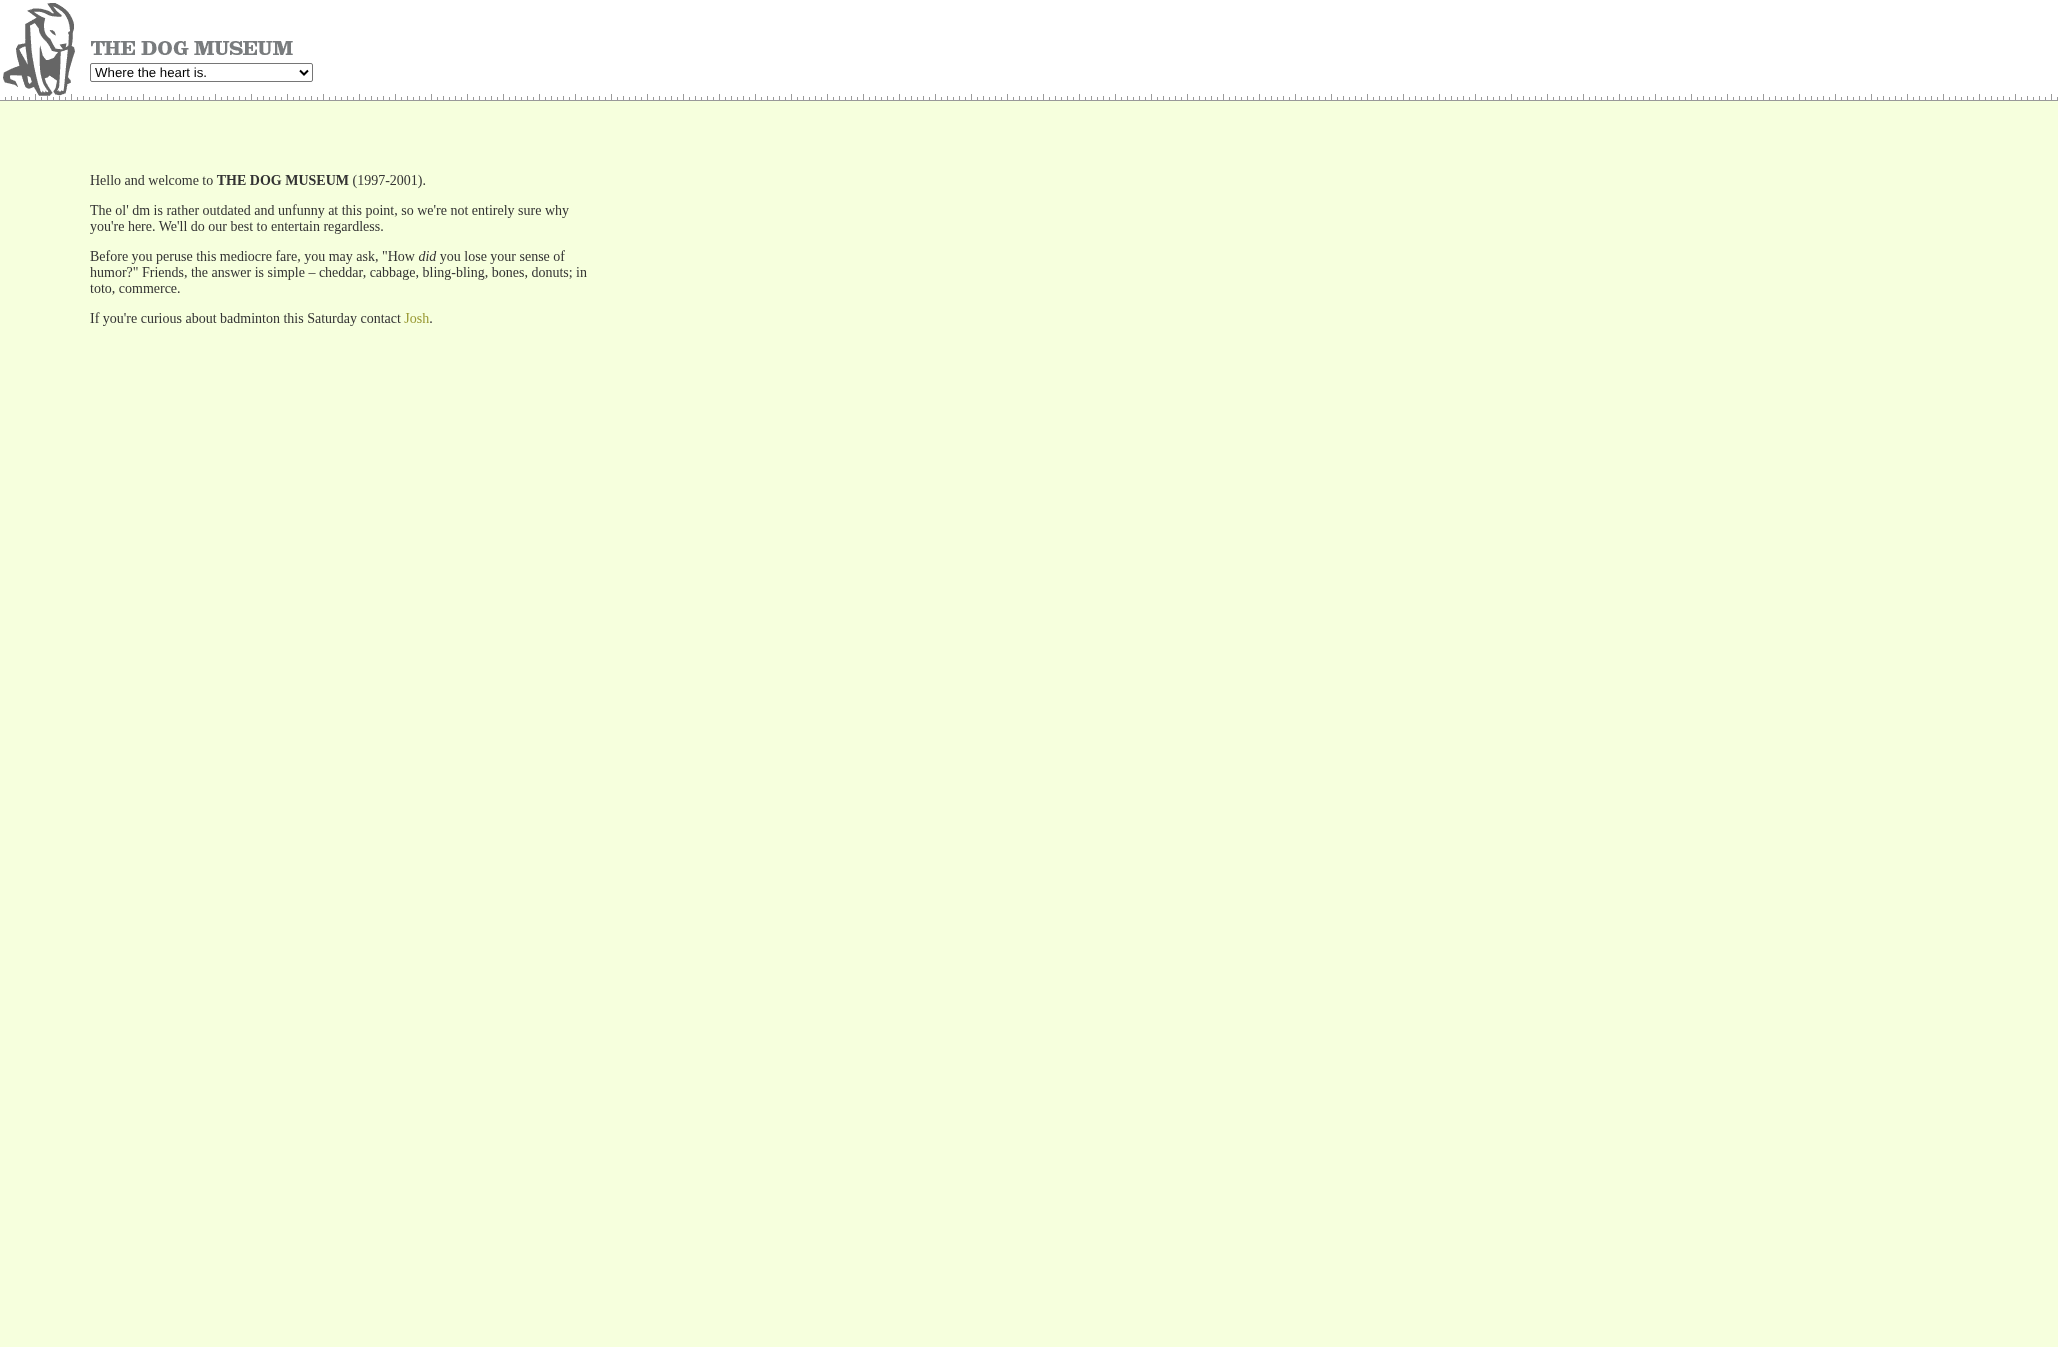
<?xml version="1.0" encoding="UTF-8"?>
<svg xmlns="http://www.w3.org/2000/svg" xmlns:xlink="http://www.w3.org/1999/xlink" width="2058" height="1347">
  <rect width="100%" height="100%" fill="#ffffff" />
  <image x="0" y="94" width="2058" height="7" xlink:href="image3.png" />
  <image x="3" y="3" width="72" height="93" xlink:href="image1.png" />
  <image x="91" y="41" width="202" height="14" xlink:href="image2.png" />
  <rect x="90.5" y="63.5" width="222" height="18" rx="1.5" fill="none" stroke="#767676" />
  <path d="M 300 70.5 l 4 4 l 4 -4" fill="none" stroke="#000000" stroke-width="2" />
  <image x="0" y="101" width="2058" height="1246" xlink:href="image4.png" />
  <text x="95" y="77" style="font-family: Liberation Sans; font-size: 13.25px; fill: #000000">Where the heart is.</text>
</svg>
